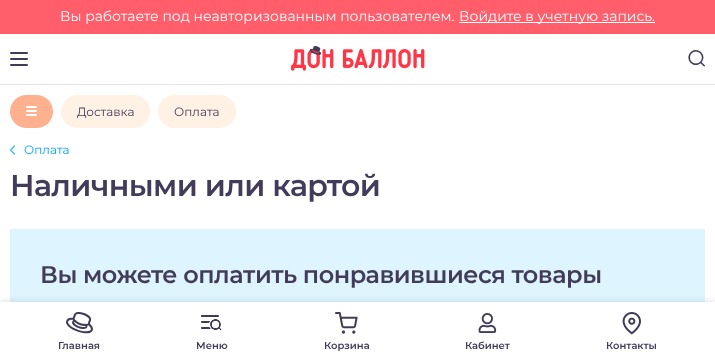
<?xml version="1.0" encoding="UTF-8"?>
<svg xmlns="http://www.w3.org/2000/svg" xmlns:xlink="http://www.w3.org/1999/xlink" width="715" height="362">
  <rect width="100%" height="100%" fill="#ffffff" />
  <rect width="715" height="34" fill="#ff5e6a" />
  <rect x="459" y="22" width="196" height="1" fill="#ffffff" />
  <rect y="84" width="715" height="1" fill="#e5e3e7" />
  <image x="10" y="52" width="18" height="14" xlink:href="image1.png" />
  <image x="291" y="49" width="134" height="22" xlink:href="image3.png" />
  <image x="309" y="46" width="12" height="9" xlink:href="image2.png" />
  <image x="688" y="50" width="17" height="17" xlink:href="image4.png" />
  <rect x="10" y="95" width="43" height="33" rx="16.5" fill="#ffb08e" />
  <rect x="26" y="106" width="11" height="2" rx="1" fill="#ffffff" />
  <rect x="26" y="110" width="11" height="2" rx="1" fill="#ffffff" />
  <rect x="26" y="114" width="11" height="2" rx="1" fill="#ffffff" />
  <rect x="61" y="95" width="89" height="33" rx="16.5" fill="#fff2e5" />
  <rect x="158" y="95" width="78" height="33" rx="16.5" fill="#fff2e5" />
  <rect x="10" y="229" width="695" height="73" fill="#def4ff" />
  <image x="10" y="145" width="5" height="10" xlink:href="image5.png" />
  <rect y="301" width="715" height="60" fill="#000000" fill-opacity="0.11" filter="blur(3px)" />
  <rect y="302" width="715" height="60" fill="#ffffff" />
  <image x="66" y="312" width="27" height="22" xlink:href="image6.png" />
  <image x="201" y="315" width="21" height="16" xlink:href="image7.png" />
  <image x="335" y="312" width="23" height="22" xlink:href="image8.png" />
  <image x="478" y="313" width="19" height="20" xlink:href="image9.png" />
  <image x="622" y="312" width="19" height="23" xlink:href="image10.png" />
  <text x="60" y="21" style="font-family: Montserrat; font-size: 14px; fill: #ffffff">Вы работаете под неавторизованным пользователем.</text>
  <text x="459" y="21" style="font-family: Montserrat; font-size: 14px; fill: #ffffff">Войдите в учетную запись.</text>
  <text x="77" y="116" style="font-family: Montserrat; font-size: 12px; fill: #423c5a">Доставка</text>
  <text x="174" y="116" style="font-family: Montserrat; font-size: 12px; fill: #423c5a">Оплата</text>
  <text x="40" y="283" style="font-family: Montserrat; font-size: 24px; font-weight: 600; letter-spacing: -0.5px; fill: #423c5a">Вы можете оплатить понравившиеся товары</text>
  <text x="24" y="154" style="font-family: Montserrat; font-size: 12px; fill: #00a6ff">Оплата</text>
  <text x="10" y="196" style="font-family: Montserrat; font-size: 30px; font-weight: 600; letter-spacing: -0.6px; fill: #423c5a">Наличными или картой</text>
  <text x="58" y="349" style="font-family: Montserrat; font-size: 10px; font-weight: 600; fill: #423c5a">Главная</text>
  <text x="196" y="349" style="font-family: Montserrat; font-size: 10px; font-weight: 600; fill: #423c5a">Меню</text>
  <text x="324" y="349" style="font-family: Montserrat; font-size: 10px; font-weight: 600; fill: #423c5a">Корзина</text>
  <text x="465" y="349" style="font-family: Montserrat; font-size: 10px; font-weight: 600; fill: #423c5a">Кабинет</text>
  <text x="606" y="349" style="font-family: Montserrat; font-size: 10px; font-weight: 600; fill: #423c5a">Контакты</text>
</svg>
